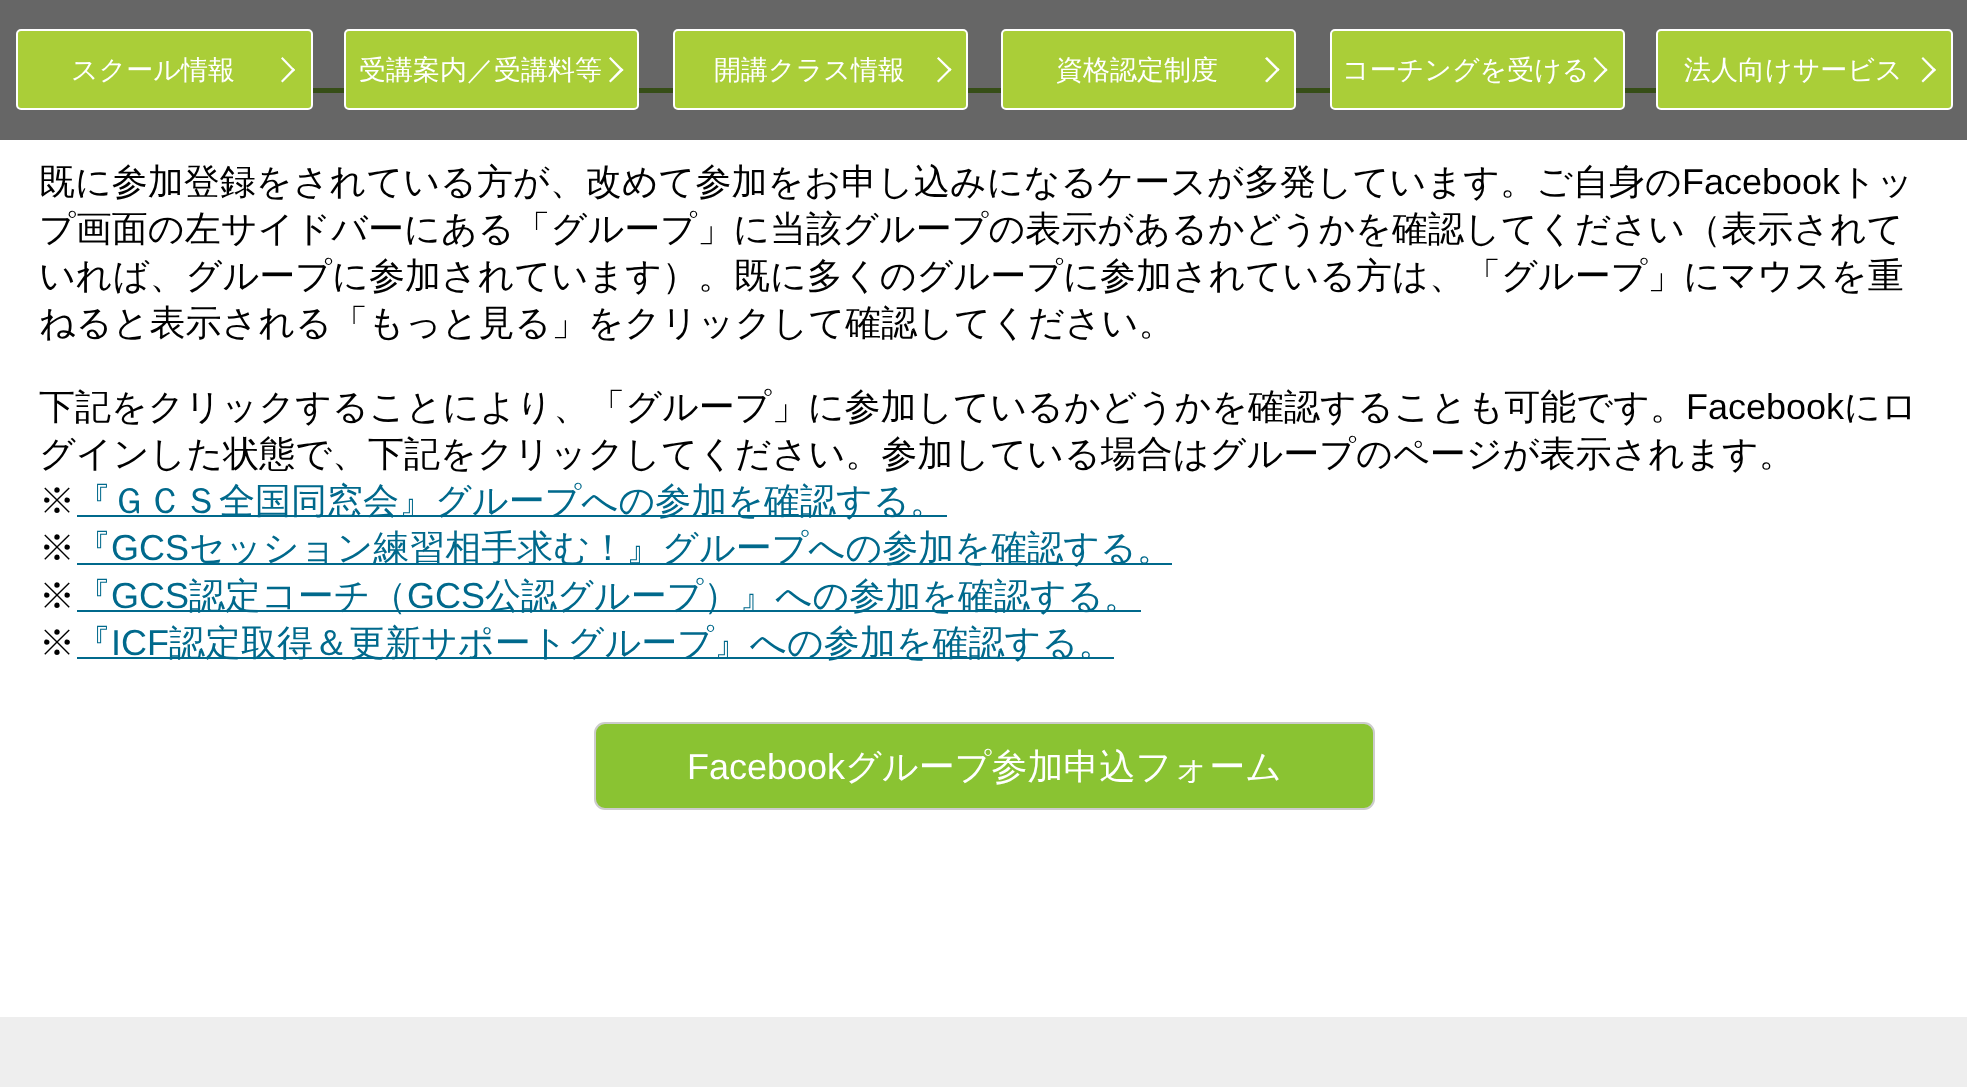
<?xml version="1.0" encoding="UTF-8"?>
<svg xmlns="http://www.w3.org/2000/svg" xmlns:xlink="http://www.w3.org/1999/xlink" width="1967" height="1087">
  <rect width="100%" height="100%" fill="#ffffff" />
  <rect width="1967" height="140" fill="#666666" />
  <rect x="17" y="30" width="295" height="79" rx="4" fill="#aace38" stroke="#ffffff" stroke-width="2" />
  <path d="M 282.5 57 l 12.5 13 l -1.5 1.5 l -12.5 -13 z" fill="#ffffff" />
  <path d="M 293.5 68 l 1.5 2 l -12.5 12.5 l -1.5 -1.5 z" fill="#ffffff" />
  <rect x="313" y="88" width="1343" height="5" fill="#364e17" />
  <rect x="345" y="30" width="293" height="79" rx="4" fill="#aace38" stroke="#ffffff" stroke-width="2" />
  <path d="M 610.5 57 l 13 13 l -2 1.5 l -12.5 -13 z" fill="#ffffff" />
  <path d="M 621.5 68 l 2 2 l -13 12.5 l -1.5 -1.5 z" fill="#ffffff" />
  <rect x="674" y="30" width="293" height="79" rx="4" fill="#aace38" stroke="#ffffff" stroke-width="2" />
  <path d="M 938.5 57 l 13 12.5 l -1.5 2 l -13 -13 z" fill="#ffffff" />
  <path d="M 950 68 l 1.5 1.5 l -13 13 l -1.5 -1.5 z" fill="#ffffff" />
  <rect x="1002" y="30" width="293" height="79" rx="4" fill="#aace38" stroke="#ffffff" stroke-width="2" />
  <path d="M 1267 57 l 12.5 12.5 l -1.5 2 l -13 -13 z" fill="#ffffff" />
  <path d="M 1278 68 l 1.5 1.5 l -12.5 13 l -2 -1.5 z" fill="#ffffff" />
  <rect x="1331" y="30" width="293" height="79" rx="4" fill="#aace38" stroke="#ffffff" stroke-width="2" />
  <path d="M 1595 57 l 12.5 13 l -1.5 1.5 l -12.5 -13 z" fill="#ffffff" />
  <path d="M 1606 68 l 1.5 2 l -12.5 12.5 l -1.5 -1.5 z" fill="#ffffff" />
  <rect x="1657" y="30" width="295" height="79" rx="4" fill="#aace38" stroke="#ffffff" stroke-width="2" />
  <path d="M 1923 57 l 13 13 l -2 1.5 l -12.5 -13 z" fill="#ffffff" />
  <path d="M 1934 68 l 2 2 l -13 12.5 l -1.5 -1.5 z" fill="#ffffff" />
  <rect x="77" y="515" width="870" height="2" fill="#00698c" />
  <rect x="77" y="563" width="1095" height="2" fill="#00698c" />
  <rect x="77" y="610" width="1064" height="2" fill="#00698c" />
  <rect x="77" y="657" width="1037" height="2" fill="#00698c" />
  <rect x="595" y="723" width="779" height="86" rx="10" fill="#8ac332" stroke="#cccccc" stroke-width="2" />
  <rect y="1017" width="1967" height="70" fill="#eeeeee" />
  <text x="71" y="79" style="font-family: WenQuanYi Zen Hei; font-size: 27px; font-weight: 500; fill: #ffffff">スクール情報</text>
  <text x="359" y="79" style="font-family: WenQuanYi Zen Hei; font-size: 27px; font-weight: 500; fill: #ffffff">受講案内／受講料等</text>
  <text x="714" y="79" style="font-family: WenQuanYi Zen Hei; font-size: 27px; font-weight: 500; fill: #ffffff">開講クラス情報</text>
  <text x="1056" y="79" style="font-family: WenQuanYi Zen Hei; font-size: 27px; font-weight: 500; fill: #ffffff">資格認定制度</text>
  <text x="1342" y="79" style="font-family: WenQuanYi Zen Hei; font-size: 27px; font-weight: 500; fill: #ffffff">コーチングを受ける</text>
  <text x="1684" y="79" style="font-family: WenQuanYi Zen Hei; font-size: 27px; font-weight: 500; fill: #ffffff">法人向けサービス</text>
  <text x="39" y="194" style="font-family: WenQuanYi Zen Hei; font-size: 36px; font-weight: 500; fill: #000000">既に参加登録をされている方が、改めて参加をお申し込みになるケースが多発しています。ご自身の</text>
  <text x="1682" y="194" style="font-family: Liberation Sans; font-size: 36px; fill: #000000">Facebook</text>
  <text x="1840" y="194" style="font-family: WenQuanYi Zen Hei; font-size: 36px; font-weight: 500; fill: #000000">トッ</text>
  <text x="39" y="241" style="font-family: WenQuanYi Zen Hei; font-size: 36px; font-weight: 500; fill: #000000">プ画面の左サイドバーにある「グループ」に当該グループの表示があるかどうかを確認してください（表示されて</text>
  <text x="39" y="288" style="font-family: WenQuanYi Zen Hei; font-size: 36px; font-weight: 500; fill: #000000">いれば、グループに参加されています）。既に多くのグループに参加されている方は、「グループ」にマウスを重</text>
  <text x="39" y="335" style="font-family: WenQuanYi Zen Hei; font-size: 36px; font-weight: 500; fill: #000000">ねると表示される「もっと見る」をクリックして確認してください。</text>
  <text x="39" y="419" style="font-family: WenQuanYi Zen Hei; font-size: 36px; font-weight: 500; fill: #000000">下記をクリックすることにより、「グループ」に参加しているかどうかを確認することも可能です。</text>
  <text x="1686" y="419" style="font-family: Liberation Sans; font-size: 36px; fill: #000000">Facebook</text>
  <text x="1844" y="419" style="font-family: WenQuanYi Zen Hei; font-size: 36px; font-weight: 500; fill: #000000">にロ</text>
  <text x="39" y="466" style="font-family: WenQuanYi Zen Hei; font-size: 36px; font-weight: 500; fill: #000000">グインした状態で、下記をクリックしてください。参加している場合はグループのページが表示されます。</text>
  <text x="39" y="513" style="font-family: WenQuanYi Zen Hei; font-size: 36px; font-weight: 500; fill: #000000">※</text>
  <text x="75" y="513" style="font-family: WenQuanYi Zen Hei; font-size: 36px; font-weight: 500; fill: #00698c">『ＧＣＳ全国同窓会』グループへの参加を確認する。</text>
  <text x="39" y="560" style="font-family: WenQuanYi Zen Hei; font-size: 36px; font-weight: 500; fill: #000000">※</text>
  <text x="75" y="560" style="font-family: WenQuanYi Zen Hei; font-size: 36px; font-weight: 500; fill: #00698c">『</text>
  <text x="111" y="560" style="font-family: Liberation Sans; font-size: 36px; fill: #00698c">GCS</text>
  <text x="189" y="560" style="font-family: WenQuanYi Zen Hei; font-size: 36px; font-weight: 500; fill: #00698c">セッション練習相手求む！』グループへの参加を確認する。</text>
  <text x="39" y="608" style="font-family: WenQuanYi Zen Hei; font-size: 36px; font-weight: 500; fill: #000000">※</text>
  <text x="75" y="608" style="font-family: WenQuanYi Zen Hei; font-size: 36px; font-weight: 500; fill: #00698c">『</text>
  <text x="111" y="608" style="font-family: Liberation Sans; font-size: 36px; fill: #00698c">GCS</text>
  <text x="189" y="608" style="font-family: WenQuanYi Zen Hei; font-size: 36px; font-weight: 500; fill: #00698c">認定コーチ（</text>
  <text x="407" y="608" style="font-family: Liberation Sans; font-size: 36px; fill: #00698c">GCS</text>
  <text x="485" y="608" style="font-family: WenQuanYi Zen Hei; font-size: 36px; font-weight: 500; fill: #00698c">公認グループ）』への参加を確認する。</text>
  <text x="39" y="655" style="font-family: WenQuanYi Zen Hei; font-size: 36px; font-weight: 500; fill: #000000">※</text>
  <text x="75" y="655" style="font-family: WenQuanYi Zen Hei; font-size: 36px; font-weight: 500; fill: #00698c">『</text>
  <text x="111" y="655" style="font-family: Liberation Sans; font-size: 36px; fill: #00698c">ICF</text>
  <text x="169" y="655" style="font-family: WenQuanYi Zen Hei; font-size: 36px; font-weight: 500; fill: #00698c">認定取得＆更新サポートグループ』への参加を確認する。</text>
  <text x="687" y="779" style="font-family: Liberation Sans; font-size: 36px; fill: #ffffff">Facebook</text>
  <text x="845" y="779" style="font-family: WenQuanYi Zen Hei; font-size: 36px; font-weight: 500; fill: #ffffff">グループ参加申込フォーム</text>
</svg>
